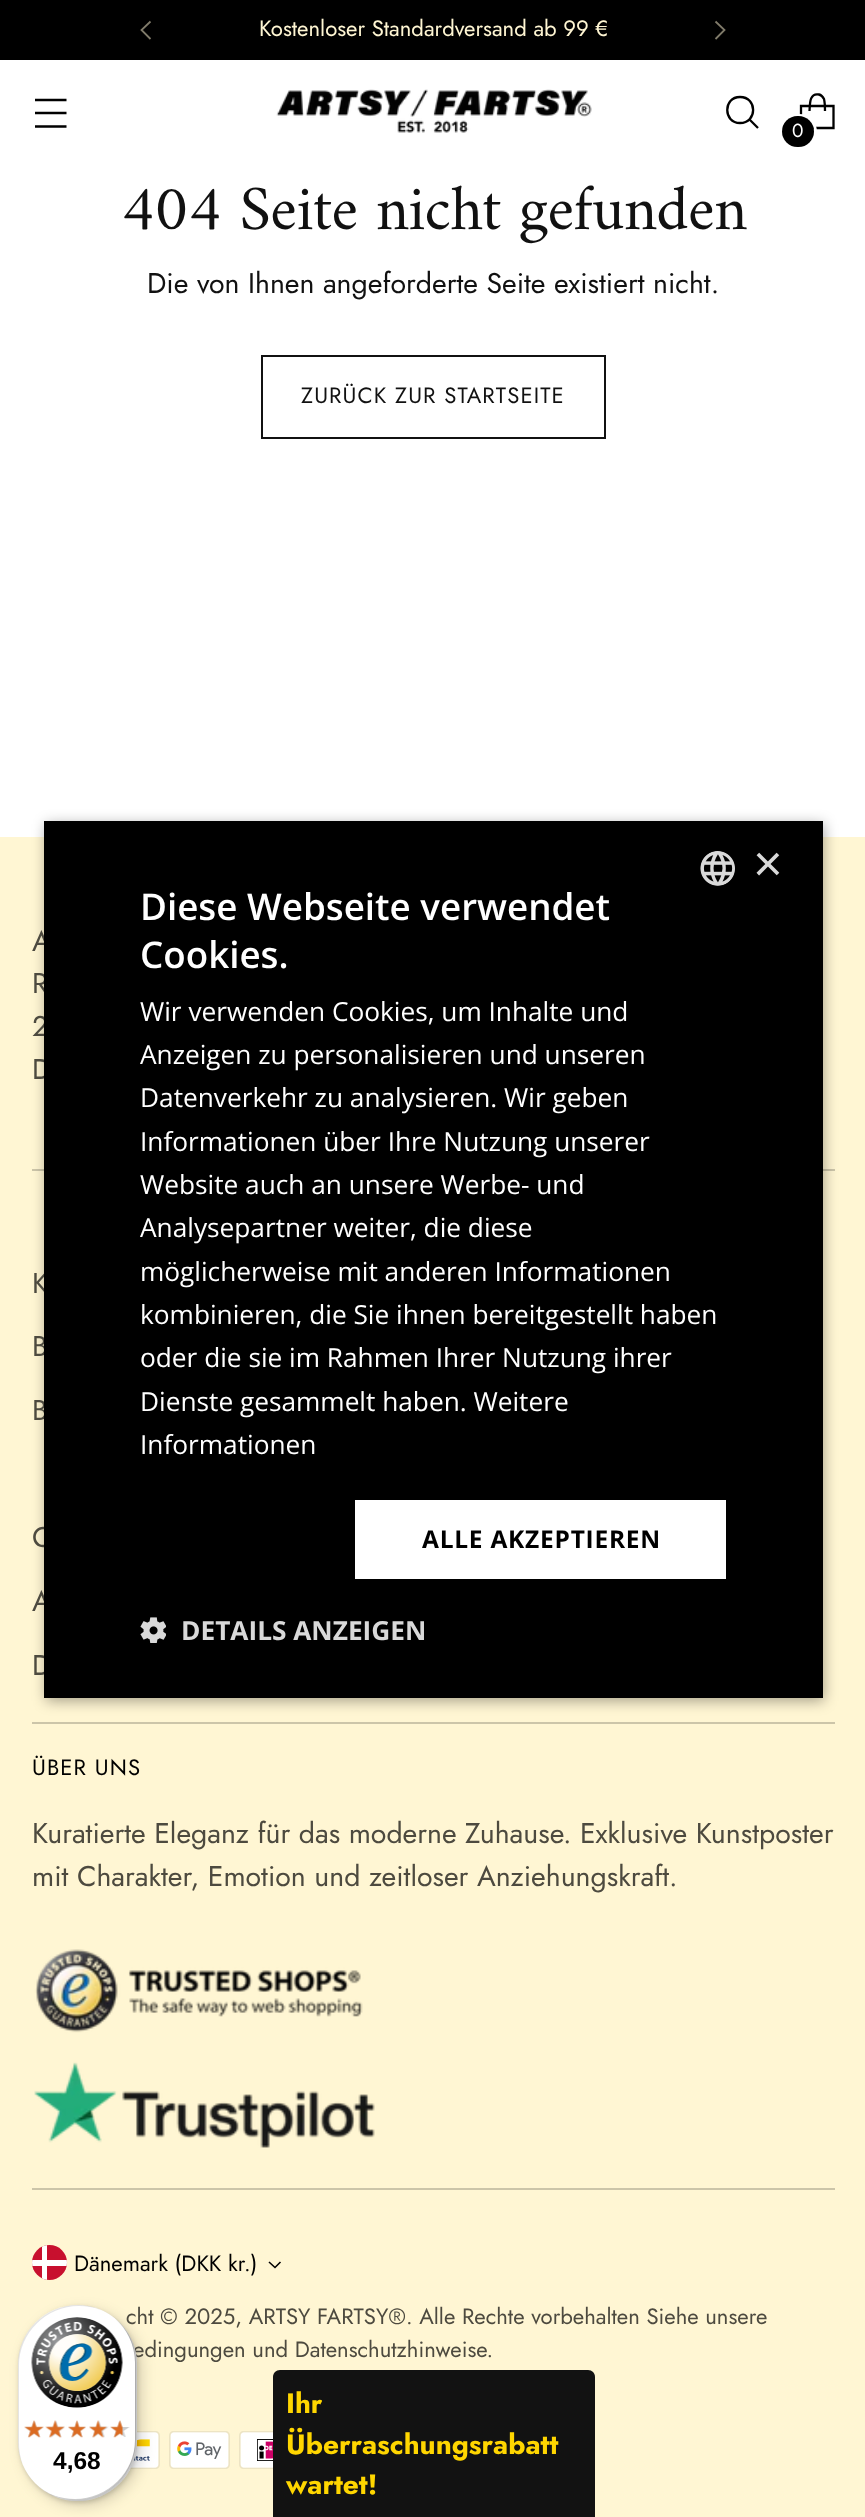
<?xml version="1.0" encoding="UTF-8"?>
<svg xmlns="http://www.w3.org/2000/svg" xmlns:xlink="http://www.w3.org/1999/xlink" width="865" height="2517">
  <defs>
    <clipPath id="clip1"><rect x="32" y="2245" width="35" height="35" rx="17.5" /></clipPath>
  </defs>
  <rect width="100%" height="100%" fill="#ffffff" />
  <rect width="865" height="60" fill="#000000" />
  <path d="M 150.5 21.5 l -9 8.5 l 9 9" fill="none" stroke="#807b6a" stroke-width="1.8" />
  <path d="M 715.5 39 l 9 -9 l -9 -8.5" fill="none" stroke="#807b6a" stroke-width="1.8" />
  <path d="M 35 113 h 31.5 m -31.5 -13 h 31.5 m -31.5 26.5 h 31.5" fill="none" stroke="#000000" stroke-width="2.3" />
  <image x="276" y="89" width="316" height="44" xlink:href="image1.png" />
  <path d="M 740 123 c 17.5 0 17.5 -26 0 -26 c -17 0 -17 26 0 26 z" fill="none" stroke="#000000" stroke-width="2.3" stroke-linecap="round" />
  <path d="M 749.5 119.5 l 8.5 8.5" fill="none" stroke="#000000" stroke-width="2.3" />
  <path d="M 825 111 c 0 -4 0 -8 -1 -12 c -1 -2 -2.5 -4 -5 -4.5 c -10 -2 -9 10.5 -9.5 16.5" fill="none" stroke="#000000" stroke-width="2.3" stroke-linejoin="bevel" />
  <path d="M 833.5 128 v -22 h -32.5 v 22 z" fill="none" stroke="#000000" stroke-width="2.3" />
  <rect x="782.5" y="115.5" width="33" height="34" rx="16.5" fill="none" stroke="#ffffff" stroke-width="3" />
  <rect x="782" y="116" width="32" height="31" rx="15.5" fill="#000000" />
  <rect x="262" y="356" width="343" height="82" fill="none" stroke="#111111" stroke-width="2" />
  <rect y="837" width="865" height="1680" fill="#fff6d3" />
  <rect x="32" y="1169" width="803" height="2" fill="#ccc5a9" />
  <rect x="32" y="1722" width="803" height="2" fill="#ccc5a9" />
  <rect x="32" y="2188" width="803" height="2" fill="#ccc5a9" />
  <image x="34" y="1949" width="341" height="199" xlink:href="image2.png" />
  <circle cx="49.5" cy="2262.5" r="17.5" fill="#c8102e" />
  <g clip-path="url(#clip1)">
    <rect x="42" y="2245" width="5" height="35" fill="#ffffff" />
    <rect x="32" y="2260" width="35" height="6" fill="#ffffff" />
  </g>
  <path d="M 269 2262 l 6 5.5 l 5.5 -5.5" fill="none" stroke="#000000" stroke-width="1.6" />
  <image x="130" y="2431" width="30" height="38" xlink:href="image3.png" />
  <image x="169" y="2431" width="61" height="38" xlink:href="image4.png" />
  <image x="239" y="2431" width="34" height="38" xlink:href="image5.png" />
  <rect x="46" y="824" width="778" height="877" fill="#000000" fill-opacity="0.35" filter="blur(7px)" />
  <rect x="23" y="2310" width="119" height="196" rx="59.5" fill="#000000" fill-opacity="0.15" filter="blur(7px)" />
  <rect x="19" y="2307" width="119" height="196" rx="59.5" fill="#000000" fill-opacity="0.15" filter="blur(2px)" />
  <path d="M 280 2370 h 308 c 4 0 7 3 7 7 v 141 h -322 v -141 c 0 -4 3 -7 7 -7 z" fill="#121212" />
  <text x="259" y="36" style="font-family: Jost; font-size: 22.1px; fill: #fff6d3">Kostenloser Standardversand ab 99 €</text>
  <text x="792" y="137" style="font-family: Jost; font-size: 19px; fill: #ffffff">0</text>
  <text x="121" y="229" style="font-family: Amiri; font-size: 64px; letter-spacing: -0.6px; fill: #111111">404 Seite nicht gefunden</text>
  <text x="147" y="293" style="font-family: Jost; font-size: 28.45px; fill: #111111">Die von Ihnen angeforderte Seite existiert nicht.</text>
  <text x="301" y="403" style="font-family: Jost; font-size: 22.1px; letter-spacing: 1.1px; fill: #111111">ZURÜCK ZUR STARTSEITE</text>
  <text x="32" y="951" style="font-family: Jost; font-size: 28.45px; fill: #4d4a3f">A</text>
  <text x="32" y="993" style="font-family: Jost; font-size: 28.45px; fill: #4d4a3f">R</text>
  <text x="32" y="1036" style="font-family: Jost; font-size: 28.45px; fill: #4d4a3f">2</text>
  <text x="32" y="1079" style="font-family: Jost; font-size: 28.45px; fill: #4d4a3f">D</text>
  <text x="32" y="1293" style="font-family: Jost; font-size: 28.45px; fill: #4d4a3f">K</text>
  <text x="32" y="1356" style="font-family: Jost; font-size: 28.45px; fill: #4d4a3f">B</text>
  <text x="32" y="1420" style="font-family: Jost; font-size: 28.45px; fill: #4d4a3f">B</text>
  <text x="32" y="1547" style="font-family: Jost; font-size: 28.45px; fill: #4d4a3f">C</text>
  <text x="32" y="1611" style="font-family: Jost; font-size: 28.45px; fill: #4d4a3f">A</text>
  <text x="32" y="1675" style="font-family: Jost; font-size: 28.45px; fill: #4d4a3f">D</text>
  <text x="32" y="1775" style="font-family: Jost; font-size: 22.1px; letter-spacing: 1.1px; fill: #000000">ÜBER UNS</text>
  <text x="32" y="1843" style="font-family: Jost; font-size: 28.45px; fill: #4d4a3f">Kuratierte Eleganz für das moderne Zuhause. Exklusive Kunstposter</text>
  <text x="32" y="1886" style="font-family: Jost; font-size: 28.45px; fill: #4d4a3f">mit Charakter, Emotion und zeitloser Anziehungskraft.</text>
  <text x="74" y="2271" style="font-family: Jost; font-size: 22.1px; fill: #000000">Dänemark (DKK kr.)</text>
  <text x="126" y="2324" style="font-family: Jost; font-size: 22.1px; fill: #4d4a3f">cht © 2025, ARTSY FARTSY®. Alle Rechte vorbehalten Siehe unsere</text>
  <text x="133" y="2357" style="font-family: Jost; font-size: 22.1px; fill: #4d4a3f">edingungen und Datenschutzhinweise.</text>
  <rect x="44" y="821" width="779" height="877" fill="#000000" />
  <image x="700" y="851" width="35" height="35" xlink:href="image6.png" />
  <text x="753" y="881" style="font-family: Liberation Sans; font-size: 51px; fill: #d9d9d9">×</text>
  <text x="140" y="920" style="font-family: Open Sans; font-size: 36.75px; font-weight: 600; fill: #ffffff">Diese Webseite verwendet</text>
  <text x="140" y="968" style="font-family: Open Sans; font-size: 36.75px; font-weight: 600; fill: #ffffff">Cookies.</text>
  <text x="140" y="1021" style="font-family: Open Sans; font-size: 26.25px; fill: #ffffff">Wir verwenden Cookies, um Inhalte und</text>
  <text x="140" y="1064" style="font-family: Open Sans; font-size: 26.25px; fill: #ffffff">Anzeigen zu personalisieren und unseren</text>
  <text x="140" y="1107" style="font-family: Open Sans; font-size: 26.25px; fill: #ffffff">Datenverkehr zu analysieren. Wir geben</text>
  <text x="140" y="1151" style="font-family: Open Sans; font-size: 26.25px; fill: #ffffff">Informationen über Ihre Nutzung unserer</text>
  <text x="140" y="1194" style="font-family: Open Sans; font-size: 26.25px; fill: #ffffff">Website auch an unsere Werbe- und</text>
  <text x="140" y="1237" style="font-family: Open Sans; font-size: 26.25px; fill: #ffffff">Analysepartner weiter, die diese</text>
  <text x="140" y="1281" style="font-family: Open Sans; font-size: 26.25px; fill: #ffffff">möglicherweise mit anderen Informationen</text>
  <text x="140" y="1324" style="font-family: Open Sans; font-size: 26.25px; fill: #ffffff">kombinieren, die Sie ihnen bereitgestellt haben</text>
  <text x="140" y="1367" style="font-family: Open Sans; font-size: 26.25px; fill: #ffffff">oder die sie im Rahmen Ihrer Nutzung ihrer</text>
  <text x="140" y="1411" style="font-family: Open Sans; font-size: 26.25px; fill: #ffffff">Dienste gesammelt haben. Weitere</text>
  <text x="140" y="1454" style="font-family: Open Sans; font-size: 26.25px; fill: #ffffff">Informationen</text>
  <rect x="355" y="1500" width="371" height="79" fill="#ffffff" />
  <text x="422" y="1548" style="font-family: Open Sans; font-size: 24.5px; font-weight: bold; letter-spacing: 0.75px; fill: #000000">ALLE AKZEPTIEREN</text>
  <image x="140" y="1617" width="26" height="26" xlink:href="image7.png" />
  <text x="181" y="1640" style="font-family: Open Sans; font-size: 26.25px; font-weight: bold; fill: #d9d9d9">DETAILS ANZEIGEN</text>
  <rect x="18" y="2305" width="119" height="196" rx="59.5" fill="#ffffff" />
  <path d="M 79 2306 c 15 0 28 5 38 14 c -11 -9 -24 -15 -39 -15 c -33 0 -60 27 -60 59 v 78 c 0 15 6 28 15 39 c -9 -10 -14 -23 -14 -38 v -77 c 0 -33 27 -60 60 -60 z" fill="#000000" fill-opacity="0.1" />
  <path d="M 37 2485 c 11 10 25 16 41 16 c 32 0 59 -27 59 -59 v -78 c 0 -18 -8 -34 -22 -45 c 12 10 20 26 20 43 v 78 c 0 32 -27 59 -60 59 c -15 0 -28 -5 -38 -14 z" fill="#000000" fill-opacity="0.2" />
  <path d="M 44 2491 c 10 6 21 10 34 10 c 32 0 59 -27 59 -59 v -78 c 0 -19 -10 -37 -24 -48 c 13 11 22 28 22 47 v 77 c 0 33 -26 60 -59 60 c -12 0 -23 -3 -32 -9 z" fill="#323232" fill-opacity="0.2" />
  <path d="M 38 2486 c 11 9 24 15 40 15 c 32 0 59 -27 59 -59 v -78 c 0 -19 -10 -37 -25 -48 c 15 11 24 28 24 47 v 77 c 0 33 -27 60 -60 60 c -15 0 -28 -5 -38 -14 z" fill="#ffffff" fill-opacity="0.3" />
  <image x="31" y="2317" width="92" height="91" xlink:href="image8.png" />
  <image x="24" y="2421" width="20" height="16" xlink:href="image9.png" />
  <image x="47" y="2420" width="18" height="18" xlink:href="image10.png" />
  <image x="68" y="2421" width="18" height="16" xlink:href="image11.png" />
  <image x="89" y="2420" width="20" height="18" xlink:href="image12.png" />
  <image x="110" y="2421" width="20" height="16" xlink:href="image13.png" />
  <image x="24" y="2420" width="20" height="18" xlink:href="image14.png" />
  <image x="45" y="2420" width="20" height="18" xlink:href="image15.png" />
  <image x="68" y="2420" width="18" height="18" xlink:href="image16.png" />
  <image x="89" y="2420" width="18" height="18" xlink:href="image17.png" />
  <image x="110" y="2420" width="13" height="18" xlink:href="image18.png" />
  <text x="53" y="2469" style="font-family: Liberation Sans; font-size: 24.5px; font-weight: bold; fill: #000000">4,68</text>
  <text x="286" y="2413" style="font-family: Jost; font-size: 28px; font-weight: bold; fill: #ffd600">Ihr</text>
  <text x="286" y="2454" style="font-family: Jost; font-size: 28px; font-weight: bold; fill: #ffd600">Überraschungsrabatt</text>
  <text x="286" y="2494" style="font-family: Jost; font-size: 28px; font-weight: bold; fill: #ffd600">wartet!</text>
</svg>
